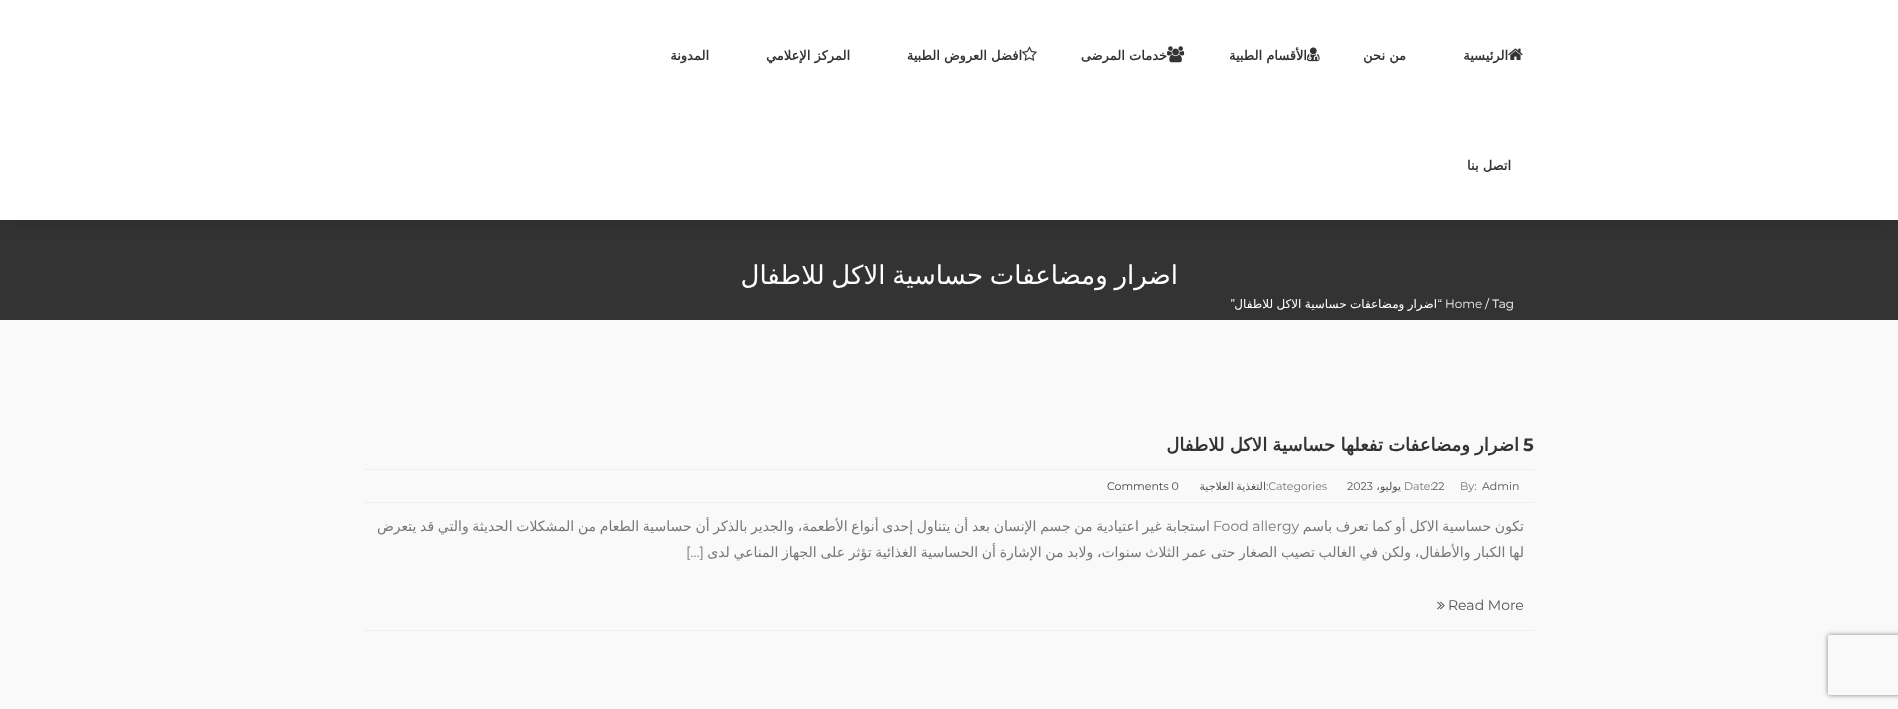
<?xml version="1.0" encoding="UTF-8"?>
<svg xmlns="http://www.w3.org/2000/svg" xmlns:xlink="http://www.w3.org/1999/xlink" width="1898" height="709">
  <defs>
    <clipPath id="clip1"><path d="M 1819 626 h 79 v 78 h -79 z m 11 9 h 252 c 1 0 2 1 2 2 v 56 c 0 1 -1 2 -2 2 h -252 c -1 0 -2 -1 -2 -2 v -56 c 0 -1 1 -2 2 -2 z" clip-rule="evenodd" /></clipPath>
  </defs>
  <rect width="100%" height="100%" fill="#f9f9f9" />
  <rect y="220" width="1898" height="100" fill="#333333" />
  <rect width="1898" height="220" fill="#000000" fill-opacity="0.15" filter="blur(10px)" />
  <rect width="1898" height="220" fill="#ffffff" />
  <image x="1508" y="48" width="15" height="12" xlink:href="image1.png" />
  <image x="1307" y="47" width="13" height="15" xlink:href="image2.png" />
  <image x="1167" y="46" width="18" height="17" xlink:href="image3.png" />
  <image x="1022" y="46" width="15" height="15" xlink:href="image4.png" />
  <rect x="364" y="630" width="1170" height="1" fill="#eeeeee" />
  <rect x="364" y="469" width="1170" height="1" fill="#eeeeee" />
  <rect x="364" y="502" width="1170" height="1" fill="#eeeeee" />
  <image x="1437" y="601" width="8" height="9" xlink:href="image5.png" />
  <g clip-path="url(#clip1)">
    <rect x="1828" y="635" width="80" height="60" rx="2" fill="#808080" filter="blur(2.5px)" />
  </g>
  <text x="1508" y="60" style="font-family: DejaVu Sans; font-size: 13px; font-weight: bold; direction: rtl; fill: #333333">الرئيسية</text>
  <text x="1406" y="60" style="font-family: DejaVu Sans; font-size: 13px; font-weight: bold; direction: rtl; fill: #333333">من نحن</text>
  <text x="1307" y="60" style="font-family: DejaVu Sans; font-size: 13px; font-weight: bold; direction: rtl; fill: #333333">الأقسام الطبية</text>
  <text x="1167" y="60" style="font-family: DejaVu Sans; font-size: 13px; font-weight: bold; direction: rtl; fill: #333333">خدمات المرضى</text>
  <text x="1022" y="60" style="font-family: DejaVu Sans; font-size: 13px; font-weight: bold; direction: rtl; fill: #333333">افضل العروض الطبية</text>
  <text x="850" y="60" style="font-family: DejaVu Sans; font-size: 13px; font-weight: bold; direction: rtl; fill: #333333">المركز الإعلامي</text>
  <text x="709" y="60" style="font-family: DejaVu Sans; font-size: 13px; font-weight: bold; direction: rtl; fill: #333333">المدونة</text>
  <text x="1511" y="170" style="font-family: DejaVu Sans; font-size: 13px; font-weight: bold; direction: rtl; fill: #333333">اتصل بنا</text>
  <text x="1178" y="284" word-spacing="-1.5" style="font-family: DejaVu Sans; font-size: 26px; direction: rtl; fill: #ffffff">اضرار ومضاعفات حساسية الاكل للاطفال</text>
  <text x="1485" y="308" style="font-family: Montserrat; font-size: 12px; fill: #ffffff">/ Tag</text>
  <text x="1445" y="308" style="font-family: Montserrat; font-size: 12px; fill: #ebebeb">Home</text>
  <text x="1437" y="308" word-spacing="-0.5" style="font-family: DejaVu Sans; font-size: 12px; direction: rtl; fill: #ffffff">اضرار ومضاعفات حساسية الاكل للاطفال</text>
  <text x="1442" y="308" style="font-family: Montserrat; font-size: 12px; direction: rtl; fill: #ffffff">“</text>
  <text x="1235" y="308" style="font-family: Montserrat; font-size: 12px; direction: rtl; fill: #ffffff">”</text>
  <text x="1523" y="451" style="font-family: Montserrat; font-size: 18px; font-weight: bold; fill: #333333">5</text>
  <text x="1519" y="451" word-spacing="-0.5" style="font-family: DejaVu Sans; font-size: 18px; font-weight: bold; direction: rtl; fill: #333333">اضرار ومضاعفات تفعلها حساسية الاكل للاطفال</text>
  <text x="1482" y="490" style="font-family: Montserrat; font-size: 11px; fill: #555555">Admin</text>
  <text x="1460" y="490" style="font-family: Montserrat; font-size: 11px; fill: #777777">By:</text>
  <text x="1432" y="490" style="font-family: Montserrat; font-size: 11px; fill: #555555">22</text>
  <text x="1404" y="490" style="font-family: Montserrat; font-size: 11px; fill: #777777">Date:</text>
  <text x="1401" y="490" style="font-family: DejaVu Sans; font-size: 11px; direction: rtl; fill: #555555">يوليو،</text>
  <text x="1347" y="490" style="font-family: Montserrat; font-size: 11px; fill: #555555">2023</text>
  <text x="1266" y="490" style="font-family: Montserrat; font-size: 11px; fill: #777777">:Categories</text>
  <text x="1266" y="490" word-spacing="-1" style="font-family: DejaVu Sans; font-size: 11px; direction: rtl; fill: #555555">التغذية العلاجية</text>
  <text x="1107" y="490" style="font-family: Montserrat; font-size: 11px; fill: #444444">Comments 0</text>
  <text x="1524" y="531" word-spacing="-0.75" style="font-family: DejaVu Sans; font-size: 14px; direction: rtl; fill: #777777">تكون حساسية الاكل أو كما تعرف باسم</text>
  <text x="1210" y="531" word-spacing="-0.75" style="font-family: DejaVu Sans; font-size: 14px; direction: rtl; fill: #777777">استجابة غير اعتيادية من جسم الإنسان بعد أن يتناول إحدى أنواع الأطعمة، والجدير بالذكر أن حساسية الطعام من المشكلات الحديثة والتي قد يتعرض</text>
  <text x="1213" y="531" style="font-family: Montserrat; font-size: 14px; fill: #777777">Food allergy</text>
  <text x="1524" y="557" word-spacing="-0.75" style="font-family: DejaVu Sans; font-size: 14px; direction: rtl; fill: #777777">لها الكبار والأطفال، ولكن في الغالب تصيب الصغار حتى عمر الثلاث سنوات، ولابد من الإشارة أن الحساسية الغذائية تؤثر على الجهاز المناعي لدى</text>
  <text x="704" y="557" style="font-family: Montserrat; font-size: 14px; direction: rtl; fill: #777777">[…]</text>
  <text x="1448" y="610" style="font-family: Montserrat; font-size: 14px; fill: #555555">Read More</text>
</svg>
